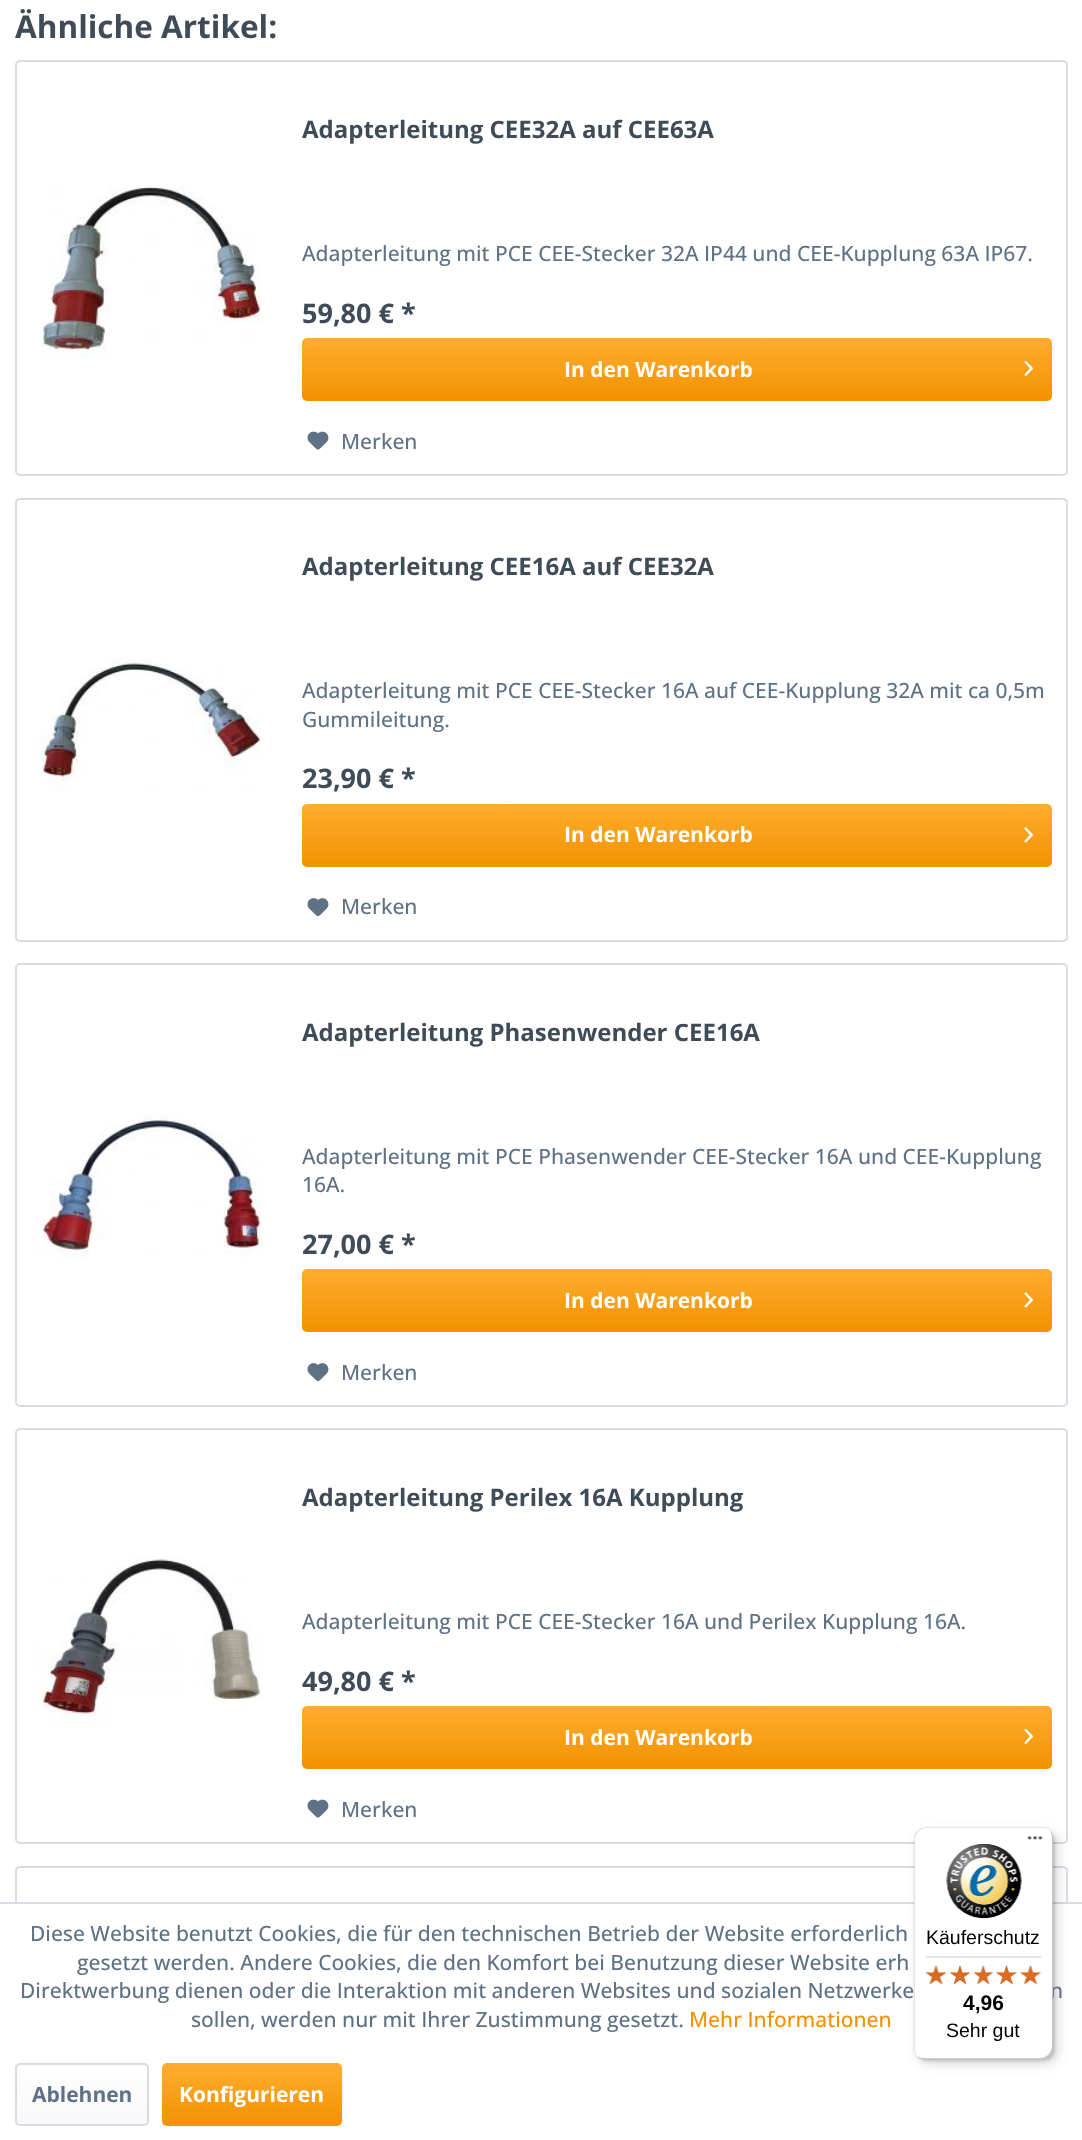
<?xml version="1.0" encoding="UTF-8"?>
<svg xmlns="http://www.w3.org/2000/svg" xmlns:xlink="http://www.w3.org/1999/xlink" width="1082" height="2140">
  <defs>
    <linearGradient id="g1" gradientUnits="userSpaceOnUse" x1="677" y1="337" x2="677" y2="401"><stop offset="0" stop-color="#ffad30" /><stop offset="1" stop-color="#f29200" /></linearGradient>
    <linearGradient id="g2" gradientUnits="userSpaceOnUse" x1="677" y1="804" x2="677" y2="867"><stop offset="0" stop-color="#ffad30" /><stop offset="1" stop-color="#f29200" /></linearGradient>
    <linearGradient id="g3" gradientUnits="userSpaceOnUse" x1="677" y1="1269" x2="677" y2="1332"><stop offset="0" stop-color="#ffad30" /><stop offset="1" stop-color="#f29200" /></linearGradient>
    <linearGradient id="g4" gradientUnits="userSpaceOnUse" x1="677" y1="1706" x2="677" y2="1769"><stop offset="0" stop-color="#ffad30" /><stop offset="1" stop-color="#f29200" /></linearGradient>
    <linearGradient id="g5" gradientUnits="userSpaceOnUse" x1="82" y1="2064" x2="82" y2="2124"><stop offset="0" stop-color="#ffffff" /><stop offset="1" stop-color="#f8f8fa" /></linearGradient>
    <linearGradient id="g6" gradientUnits="userSpaceOnUse" x1="252" y1="2063" x2="252" y2="2126"><stop offset="0" stop-color="#ffad30" /><stop offset="1" stop-color="#f29200" /></linearGradient>
  </defs>
  <rect width="100%" height="100%" fill="#ffffff" />
  <rect x="16" y="61" width="1051" height="414" rx="4" fill="none" stroke="#dadae5" stroke-width="2" />
  <image x="38" y="186" width="225" height="174" xlink:href="image1.png" />
  <rect x="302" y="338" width="750" height="63" rx="5" fill="url(#g1)" />
  <image x="1024" y="361" width="9" height="15" xlink:href="image2.png" />
  <image x="307" y="431" width="22" height="19" xlink:href="image3.png" />
  <rect x="16" y="499" width="1051" height="442" rx="4" fill="none" stroke="#dadae5" stroke-width="2" />
  <image x="32" y="658" width="230" height="134" xlink:href="image4.png" />
  <rect x="302" y="804" width="750" height="63" rx="5" fill="url(#g2)" />
  <image x="1024" y="827" width="9" height="16" xlink:href="image5.png" />
  <image x="307" y="898" width="22" height="19" xlink:href="image6.png" />
  <rect x="16" y="964" width="1051" height="442" rx="4" fill="none" stroke="#dadae5" stroke-width="2" />
  <image x="32" y="1113" width="231" height="145" xlink:href="image7.png" />
  <rect x="302" y="1269" width="750" height="63" rx="5" fill="url(#g3)" />
  <image x="1024" y="1292" width="9" height="16" xlink:href="image5.png" />
  <image x="307" y="1363" width="22" height="19" xlink:href="image6.png" />
  <rect x="16" y="1429" width="1051" height="414" rx="4" fill="none" stroke="#dadae5" stroke-width="2" />
  <image x="32" y="1556" width="230" height="172" xlink:href="image8.png" />
  <rect x="302" y="1706" width="750" height="63" rx="5" fill="url(#g4)" />
  <image x="1024" y="1729" width="9" height="15" xlink:href="image9.png" />
  <image x="307" y="1799" width="22" height="19" xlink:href="image3.png" />
  <rect x="16" y="1867" width="1051" height="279" rx="4" fill="none" stroke="#dadae5" stroke-width="2" />
  <rect x="15" y="1904" width="1053" height="236" fill="#ffffff" />
  <rect y="1902" width="1082" height="2" fill="#dadae5" />
  <rect x="17" y="2064" width="130" height="60" rx="3" fill="url(#g5)" />
  <rect x="16" y="2064" width="132" height="61" rx="4" fill="none" stroke="#dadae5" stroke-width="2" />
  <rect x="162" y="2063" width="180" height="63" rx="5" fill="url(#g6)" />
  <rect x="918" y="1832" width="140" height="232" rx="12" fill="#000000" fill-opacity="0.15" filter="blur(6px)" />
  <rect x="915" y="1829" width="140" height="232" rx="12" fill="#000000" fill-opacity="0.15" filter="blur(1.5px)" />
  <text x="15" y="38" style="font-family: Open Sans; font-size: 31.5px; font-weight: bold; fill: #3f4c58">Ähnliche Artikel:</text>
  <text x="302" y="138" style="font-family: Open Sans; font-size: 24px; font-weight: bold; fill: #3f4c58">Adapterleitung CEE32A auf CEE63A</text>
  <text x="302" y="261" style="font-family: Open Sans; font-size: 21px; font-weight: 500; fill: #5f7285">Adapterleitung mit PCE CEE-Stecker 32A IP44 und CEE-Kupplung 63A IP67.</text>
  <text x="302" y="323" style="font-family: Open Sans; font-size: 27px; font-weight: bold; fill: #3f4c58">59,80 € *</text>
  <text x="564" y="377" style="font-family: Open Sans; font-size: 21px; font-weight: bold; fill: #ffffff">In den Warenkorb</text>
  <text x="341" y="449" style="font-family: Open Sans; font-size: 21px; font-weight: 500; fill: #5f7285">Merken</text>
  <text x="302" y="575" style="font-family: Open Sans; font-size: 24px; font-weight: bold; fill: #3f4c58">Adapterleitung CEE16A auf CEE32A</text>
  <text x="302" y="698" style="font-family: Open Sans; font-size: 21px; font-weight: 500; fill: #5f7285">Adapterleitung mit PCE CEE-Stecker 16A auf CEE-Kupplung 32A mit ca 0,5m</text>
  <text x="302" y="727" style="font-family: Open Sans; font-size: 21px; font-weight: 500; fill: #5f7285">Gummileitung.</text>
  <text x="302" y="788" style="font-family: Open Sans; font-size: 27px; font-weight: bold; fill: #3f4c58">23,90 € *</text>
  <text x="564" y="842" style="font-family: Open Sans; font-size: 21px; font-weight: bold; fill: #ffffff">In den Warenkorb</text>
  <text x="341" y="914" style="font-family: Open Sans; font-size: 21px; font-weight: 500; fill: #5f7285">Merken</text>
  <text x="302" y="1041" style="font-family: Open Sans; font-size: 24px; font-weight: bold; fill: #3f4c58">Adapterleitung Phasenwender CEE16A</text>
  <text x="302" y="1164" style="font-family: Open Sans; font-size: 21px; font-weight: 500; fill: #5f7285">Adapterleitung mit PCE Phasenwender CEE-Stecker 16A und CEE-Kupplung</text>
  <text x="302" y="1192" style="font-family: Open Sans; font-size: 21px; font-weight: 500; fill: #5f7285">16A.</text>
  <text x="302" y="1254" style="font-family: Open Sans; font-size: 27px; font-weight: bold; fill: #3f4c58">27,00 € *</text>
  <text x="564" y="1308" style="font-family: Open Sans; font-size: 21px; font-weight: bold; fill: #ffffff">In den Warenkorb</text>
  <text x="341" y="1380" style="font-family: Open Sans; font-size: 21px; font-weight: 500; fill: #5f7285">Merken</text>
  <text x="302" y="1506" style="font-family: Open Sans; font-size: 24px; font-weight: bold; fill: #3f4c58">Adapterleitung Perilex 16A Kupplung</text>
  <text x="302" y="1629" style="font-family: Open Sans; font-size: 21px; font-weight: 500; fill: #5f7285">Adapterleitung mit PCE CEE-Stecker 16A und Perilex Kupplung 16A.</text>
  <text x="302" y="1691" style="font-family: Open Sans; font-size: 27px; font-weight: bold; fill: #3f4c58">49,80 € *</text>
  <text x="564" y="1745" style="font-family: Open Sans; font-size: 21px; font-weight: bold; fill: #ffffff">In den Warenkorb</text>
  <text x="341" y="1817" style="font-family: Open Sans; font-size: 21px; font-weight: 500; fill: #5f7285">Merken</text>
  <text x="30" y="1941" style="font-family: Open Sans; font-size: 21px; font-weight: 500; fill: #5f7285">Diese Website benutzt Cookies, die für den technischen Betrieb der Website erforderlich</text>
  <text x="77" y="1970" style="font-family: Open Sans; font-size: 21px; font-weight: 500; fill: #5f7285">gesetzt werden. Andere Cookies, die den Komfort bei Benutzung dieser Website erh</text>
  <text x="20" y="1998" style="font-family: Open Sans; font-size: 21px; font-weight: 500; fill: #5f7285">Direktwerbung dienen oder die Interaktion mit anderen Websites und sozialen Netzwerke</text>
  <text x="1050" y="1998" style="font-family: Open Sans; font-size: 21px; font-weight: 500; fill: #5f7285">n</text>
  <text x="191" y="2027" style="font-family: Open Sans; font-size: 21px; font-weight: 500; fill: #5f7285">sollen, werden nur mit Ihrer Zustimmung gesetzt.</text>
  <text x="689" y="2027" style="font-family: Open Sans; font-size: 21px; font-weight: 500; fill: #f29200">Mehr Informationen</text>
  <text x="32" y="2102" style="font-family: Open Sans; font-size: 21px; font-weight: bold; fill: #5f7285">Ablehnen</text>
  <text x="179" y="2102" style="font-family: Open Sans; font-size: 21px; font-weight: bold; fill: #ffffff">Konfigurieren</text>
  <rect x="914" y="1827" width="139" height="233" rx="12" fill="#ffffff" />
  <path d="M 927 1828 h 115 c 3 0 6 1 8 3 c -2 -2 -5 -4 -9 -4 h -115 c -7 0 -12 5 -12 12 v 209 c 0 3 1 6 3 8 c -1 -2 -2 -4 -2 -7 v -209 c 0 -6 5 -12 12 -12 z" fill="#e5e5e5" />
  <path d="M 917 2056 c 2 2 5 4 9 4 h 115 c 7 0 12 -5 12 -12 v -209 c 0 -4 -2 -7 -4 -9 c 2 2 3 5 3 8 v 208 c 0 7 -6 12 -12 12 h -116 c -3 0 -5 -1 -7 -2 z" fill="#000000" fill-opacity="0.2" />
  <path d="M 917 2056 c 2 2 5 4 9 4 h 115 c 7 0 12 -5 12 -12 v -209 c 0 -3 -1 -6 -3 -8 c 1 2 2 4 2 7 v 209 c 0 6 -5 12 -12 12 h -115 c -3 0 -6 -1 -8 -3 z" fill="#323232" fill-opacity="0.2" />
  <path d="M 917 2056 c 2 2 5 4 9 4 h 115 c 7 0 12 -5 12 -12 v -209 c 0 -4 -2 -7 -4 -9 c 2 2 3 5 3 8 v 209 c 0 6 -5 12 -12 12 h -115 c -3 0 -6 -1 -8 -3 z" fill="#ffffff" fill-opacity="0.3" />
  <image x="1027" y="1836" width="16" height="4" xlink:href="image10.png" />
  <image x="946" y="1844" width="76" height="75" xlink:href="image11.png" />
  <text x="926" y="1944" style="font-family: Liberation Sans; font-size: 19.5px; fill: #000000">Käuferschutz</text>
  <rect x="926" y="1956" width="115" height="2" fill="#e5e5e5" />
  <image x="925" y="1965" width="22" height="19" xlink:href="image12.png" />
  <image x="950" y="1965" width="20" height="19" xlink:href="image13.png" />
  <image x="973" y="1965" width="20" height="19" xlink:href="image14.png" />
  <image x="996" y="1965" width="21" height="19" xlink:href="image15.png" />
  <image x="1020" y="1965" width="21" height="19" xlink:href="image16.png" />
  <image x="925" y="1965" width="22" height="19" xlink:href="image17.png" />
  <image x="950" y="1965" width="20" height="20" xlink:href="image18.png" />
  <image x="973" y="1965" width="20" height="19" xlink:href="image19.png" />
  <image x="996" y="1965" width="21" height="20" xlink:href="image20.png" />
  <image x="1020" y="1965" width="21" height="19" xlink:href="image21.png" />
  <text x="963" y="2010" style="font-family: Liberation Sans; font-size: 21px; font-weight: bold; fill: #000000">4,96</text>
  <text x="946" y="2037" style="font-family: Liberation Sans; font-size: 19.5px; fill: #000000">Sehr gut</text>
</svg>
